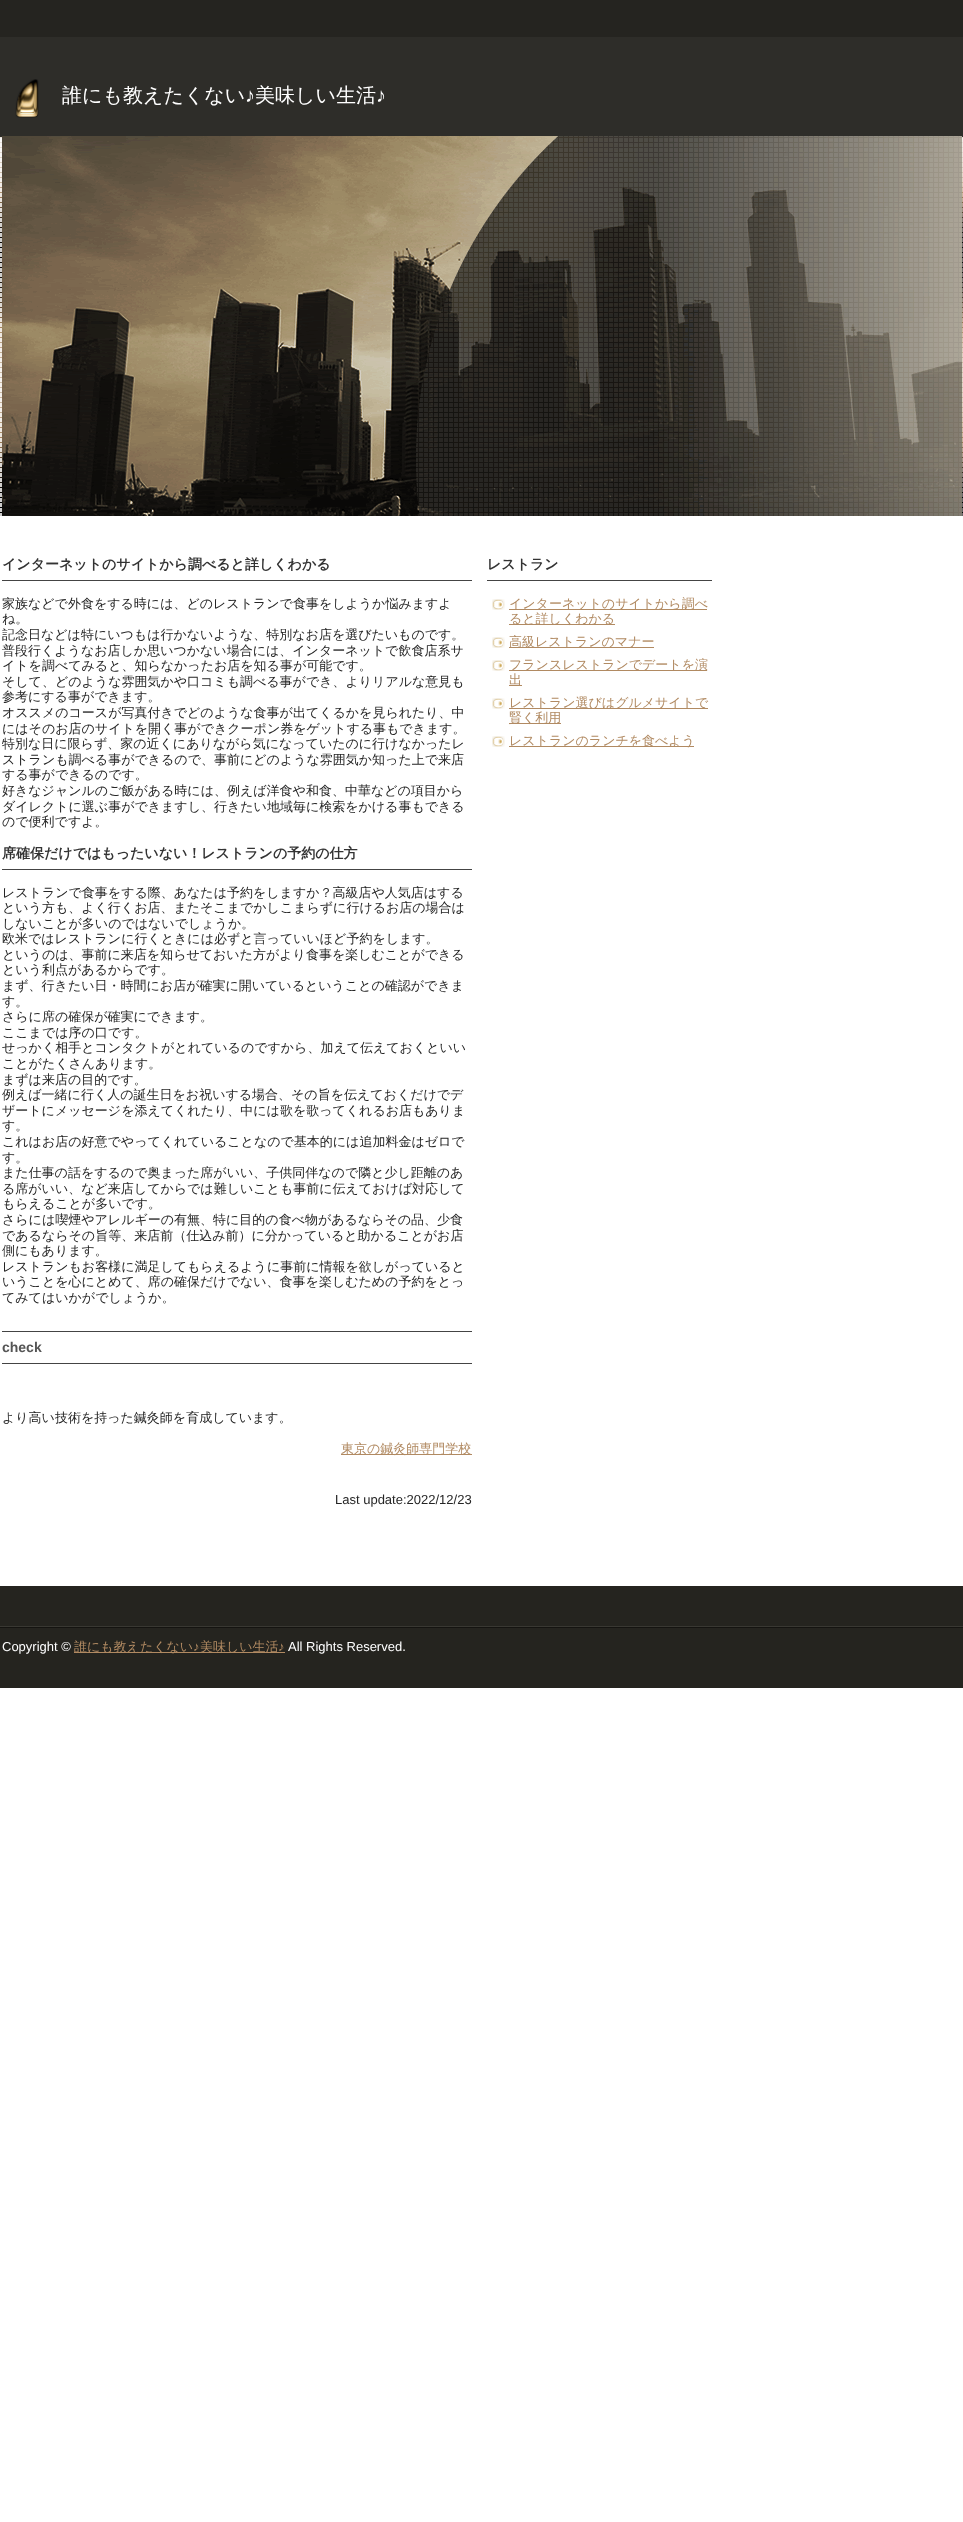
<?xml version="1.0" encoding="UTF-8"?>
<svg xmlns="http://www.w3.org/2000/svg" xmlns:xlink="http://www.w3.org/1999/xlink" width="963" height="2522">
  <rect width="100%" height="100%" fill="#ffffff" />
  <image x="0" y="0" width="963" height="516" xlink:href="image1.png" />
  <image x="15" y="79" width="24" height="39" xlink:href="image2.png" />
  <image x="2" y="136" width="960" height="380" xlink:href="image3.png" />
  <rect x="2" y="580" width="470" height="1" fill="#444444" />
  <rect x="2" y="869" width="470" height="1" fill="#444444" />
  <rect x="2" y="1331" width="470" height="1" fill="#444444" />
  <rect x="2" y="1363" width="470" height="1" fill="#444444" />
  <rect x="341" y="1454" width="131" height="1" fill="#b18a62" />
  <rect x="487" y="580" width="225" height="1" fill="#444444" />
  <image x="492" y="599" width="13" height="11" xlink:href="image4.png" />
  <rect x="509" y="609" width="198" height="1" fill="#b18a62" />
  <rect x="509" y="624" width="106" height="1" fill="#b18a62" />
  <image x="492" y="637" width="13" height="11" xlink:href="image4.png" />
  <rect x="509" y="647" width="145" height="1" fill="#b18a62" />
  <image x="492" y="660" width="13" height="11" xlink:href="image4.png" />
  <rect x="509" y="670" width="198" height="1" fill="#b18a62" />
  <rect x="509" y="685" width="13" height="1" fill="#b18a62" />
  <image x="492" y="698" width="13" height="11" xlink:href="image4.png" />
  <rect x="509" y="708" width="199" height="1" fill="#b18a62" />
  <rect x="509" y="723" width="52" height="1" fill="#b18a62" />
  <image x="492" y="736" width="13" height="11" xlink:href="image4.png" />
  <rect x="509" y="746" width="185" height="1" fill="#b18a62" />
  <rect y="1586" width="963" height="40" fill="#25241f" />
  <rect y="1626" width="963" height="1" fill="#393832" />
  <rect y="1628" width="963" height="60" fill="#25241f" />
  <rect y="1627" width="963" height="1" fill="#151411" />
  <rect x="74" y="1652" width="211" height="1" fill="#b18a62" />
  <text x="62" y="102" style="font-family: WenQuanYi Zen Hei; font-size: 20px; font-weight: 500; fill: #ffffff">誰にも教えたくない</text>
  <text x="245" y="102" style="font-family: Liberation Sans; font-size: 20px; fill: #ffffff">♪</text>
  <text x="255" y="102" style="font-family: WenQuanYi Zen Hei; font-size: 20px; font-weight: 500; fill: #ffffff">美味しい生活</text>
  <text x="376" y="102" style="font-family: Liberation Sans; font-size: 20px; fill: #ffffff">♪</text>
  <text x="2" y="569" style="font-family: WenQuanYi Zen Hei; font-size: 14px; font-weight: bold; fill: #333333">インターネットのサイトから調べると詳しくわかる</text>
  <text x="2" y="608" style="font-family: WenQuanYi Zen Hei; font-size: 13px; font-weight: 500; fill: #252525">家族などで外食をする時には、どのレストランで食事をしようか悩みますよ</text>
  <text x="2" y="623" style="font-family: WenQuanYi Zen Hei; font-size: 13px; font-weight: 500; fill: #252525">ね。</text>
  <text x="2" y="639" style="font-family: WenQuanYi Zen Hei; font-size: 13px; font-weight: 500; fill: #252525">記念日などは特にいつもは行かないような、特別なお店を選びたいものです。</text>
  <text x="2" y="655" style="font-family: WenQuanYi Zen Hei; font-size: 13px; font-weight: 500; fill: #252525">普段行くようなお店しか思いつかない場合には、インターネットで飲食店系サ</text>
  <text x="2" y="670" style="font-family: WenQuanYi Zen Hei; font-size: 13px; font-weight: 500; fill: #252525">イトを調べてみると、知らなかったお店を知る事が可能です。</text>
  <text x="2" y="686" style="font-family: WenQuanYi Zen Hei; font-size: 13px; font-weight: 500; fill: #252525">そして、どのような雰囲気かや口コミも調べる事ができ、よりリアルな意見も</text>
  <text x="2" y="701" style="font-family: WenQuanYi Zen Hei; font-size: 13px; font-weight: 500; fill: #252525">参考にする事ができます。</text>
  <text x="2" y="717" style="font-family: WenQuanYi Zen Hei; font-size: 13px; font-weight: 500; fill: #252525">オススメのコースが写真付きでどのような食事が出てくるかを見られたり、中</text>
  <text x="2" y="733" style="font-family: WenQuanYi Zen Hei; font-size: 13px; font-weight: 500; fill: #252525">にはそのお店のサイトを開く事ができクーポン券をゲットする事もできます。</text>
  <text x="2" y="748" style="font-family: WenQuanYi Zen Hei; font-size: 13px; font-weight: 500; fill: #252525">特別な日に限らず、家の近くにありながら気になっていたのに行けなかったレ</text>
  <text x="2" y="764" style="font-family: WenQuanYi Zen Hei; font-size: 13px; font-weight: 500; fill: #252525">ストランも調べる事ができるので、事前にどのような雰囲気か知った上で来店</text>
  <text x="2" y="779" style="font-family: WenQuanYi Zen Hei; font-size: 13px; font-weight: 500; fill: #252525">する事ができるのです。</text>
  <text x="2" y="795" style="font-family: WenQuanYi Zen Hei; font-size: 13px; font-weight: 500; fill: #252525">好きなジャンルのご飯がある時には、例えば洋食や和食、中華などの項目から</text>
  <text x="2" y="811" style="font-family: WenQuanYi Zen Hei; font-size: 13px; font-weight: 500; fill: #252525">ダイレクトに選ぶ事ができますし、行きたい地域毎に検索をかける事もできる</text>
  <text x="2" y="826" style="font-family: WenQuanYi Zen Hei; font-size: 13px; font-weight: 500; fill: #252525">ので便利ですよ。</text>
  <text x="2" y="858" style="font-family: WenQuanYi Zen Hei; font-size: 14px; font-weight: bold; fill: #333333">席確保だけではもったいない！レストランの予約の仕方</text>
  <text x="2" y="897" style="font-family: WenQuanYi Zen Hei; font-size: 13px; font-weight: 500; fill: #252525">レストランで食事をする際、あなたは予約をしますか？高級店や人気店はする</text>
  <text x="2" y="912" style="font-family: WenQuanYi Zen Hei; font-size: 13px; font-weight: 500; fill: #252525">という方も、よく行くお店、またそこまでかしこまらずに行けるお店の場合は</text>
  <text x="2" y="928" style="font-family: WenQuanYi Zen Hei; font-size: 13px; font-weight: 500; fill: #252525">しないことが多いのではないでしょうか。</text>
  <text x="2" y="943" style="font-family: WenQuanYi Zen Hei; font-size: 13px; font-weight: 500; fill: #252525">欧米ではレストランに行くときには必ずと言っていいほど予約をします。</text>
  <text x="2" y="959" style="font-family: WenQuanYi Zen Hei; font-size: 13px; font-weight: 500; fill: #252525">というのは、事前に来店を知らせておいた方がより食事を楽しむことができる</text>
  <text x="2" y="974" style="font-family: WenQuanYi Zen Hei; font-size: 13px; font-weight: 500; fill: #252525">という利点があるからです。</text>
  <text x="2" y="990" style="font-family: WenQuanYi Zen Hei; font-size: 13px; font-weight: 500; fill: #252525">まず、行きたい日・時間にお店が確実に開いているということの確認ができま</text>
  <text x="2" y="1006" style="font-family: WenQuanYi Zen Hei; font-size: 13px; font-weight: 500; fill: #252525">す。</text>
  <text x="2" y="1021" style="font-family: WenQuanYi Zen Hei; font-size: 13px; font-weight: 500; fill: #252525">さらに席の確保が確実にできます。</text>
  <text x="2" y="1037" style="font-family: WenQuanYi Zen Hei; font-size: 13px; font-weight: 500; fill: #252525">ここまでは序の口です。</text>
  <text x="2" y="1052" style="font-family: WenQuanYi Zen Hei; font-size: 13px; font-weight: 500; fill: #252525">せっかく相手とコンタクトがとれているのですから、加えて伝えておくといい</text>
  <text x="2" y="1068" style="font-family: WenQuanYi Zen Hei; font-size: 13px; font-weight: 500; fill: #252525">ことがたくさんあります。</text>
  <text x="2" y="1084" style="font-family: WenQuanYi Zen Hei; font-size: 13px; font-weight: 500; fill: #252525">まずは来店の目的です。</text>
  <text x="2" y="1099" style="font-family: WenQuanYi Zen Hei; font-size: 13px; font-weight: 500; fill: #252525">例えば一緒に行く人の誕生日をお祝いする場合、その旨を伝えておくだけでデ</text>
  <text x="2" y="1115" style="font-family: WenQuanYi Zen Hei; font-size: 13px; font-weight: 500; fill: #252525">ザートにメッセージを添えてくれたり、中には歌を歌ってくれるお店もありま</text>
  <text x="2" y="1130" style="font-family: WenQuanYi Zen Hei; font-size: 13px; font-weight: 500; fill: #252525">す。</text>
  <text x="2" y="1146" style="font-family: WenQuanYi Zen Hei; font-size: 13px; font-weight: 500; fill: #252525">これはお店の好意でやってくれていることなので基本的には追加料金はゼロで</text>
  <text x="2" y="1162" style="font-family: WenQuanYi Zen Hei; font-size: 13px; font-weight: 500; fill: #252525">す。</text>
  <text x="2" y="1177" style="font-family: WenQuanYi Zen Hei; font-size: 13px; font-weight: 500; fill: #252525">また仕事の話をするので奥まった席がいい、子供同伴なので隣と少し距離のあ</text>
  <text x="2" y="1193" style="font-family: WenQuanYi Zen Hei; font-size: 13px; font-weight: 500; fill: #252525">る席がいい、など来店してからでは難しいことも事前に伝えておけば対応して</text>
  <text x="2" y="1208" style="font-family: WenQuanYi Zen Hei; font-size: 13px; font-weight: 500; fill: #252525">もらえることが多いです。</text>
  <text x="2" y="1224" style="font-family: WenQuanYi Zen Hei; font-size: 13px; font-weight: 500; fill: #252525">さらには喫煙やアレルギーの有無、特に目的の食べ物があるならその品、少食</text>
  <text x="2" y="1240" style="font-family: WenQuanYi Zen Hei; font-size: 13px; font-weight: 500; fill: #252525">であるならその旨等、来店前（仕込み前）に分かっていると助かることがお店</text>
  <text x="2" y="1255" style="font-family: WenQuanYi Zen Hei; font-size: 13px; font-weight: 500; fill: #252525">側にもあります。</text>
  <text x="2" y="1271" style="font-family: WenQuanYi Zen Hei; font-size: 13px; font-weight: 500; fill: #252525">レストランもお客様に満足してもらえるように事前に情報を欲しがっていると</text>
  <text x="2" y="1286" style="font-family: WenQuanYi Zen Hei; font-size: 13px; font-weight: 500; fill: #252525">いうことを心にとめて、席の確保だけでない、食事を楽しむための予約をとっ</text>
  <text x="2" y="1302" style="font-family: WenQuanYi Zen Hei; font-size: 13px; font-weight: 500; fill: #252525">てみてはいかがでしょうか。</text>
  <text x="2" y="1352" style="font-family: Liberation Sans; font-size: 14px; font-weight: bold; fill: #555555">check</text>
  <text x="2" y="1422" style="font-family: WenQuanYi Zen Hei; font-size: 13px; font-weight: 500; fill: #252525">より高い技術を持った鍼灸師を育成しています。</text>
  <text x="341" y="1453" style="font-family: WenQuanYi Zen Hei; font-size: 13px; font-weight: 500; fill: #b18a62">東京の鍼灸師専門学校</text>
  <text x="335" y="1504" style="font-family: Liberation Sans; font-size: 13px; fill: #252525">Last update:2022/12/23</text>
  <text x="487" y="569" style="font-family: WenQuanYi Zen Hei; font-size: 14px; font-weight: bold; fill: #333333">レストラン</text>
  <text x="509" y="608" style="font-family: WenQuanYi Zen Hei; font-size: 13px; font-weight: 500; fill: #b18a62">インターネットのサイトから調べ</text>
  <text x="509" y="623" style="font-family: WenQuanYi Zen Hei; font-size: 13px; font-weight: 500; fill: #b18a62">ると詳しくわかる</text>
  <text x="509" y="646" style="font-family: WenQuanYi Zen Hei; font-size: 13px; font-weight: 500; fill: #b18a62">高級レストランのマナー</text>
  <text x="509" y="669" style="font-family: WenQuanYi Zen Hei; font-size: 13px; font-weight: 500; fill: #b18a62">フランスレストランでデートを演</text>
  <text x="509" y="684" style="font-family: WenQuanYi Zen Hei; font-size: 13px; font-weight: 500; fill: #b18a62">出</text>
  <text x="509" y="707" style="font-family: WenQuanYi Zen Hei; font-size: 13px; font-weight: 500; fill: #b18a62">レストラン選びはグルメサイトで</text>
  <text x="509" y="722" style="font-family: WenQuanYi Zen Hei; font-size: 13px; font-weight: 500; fill: #b18a62">賢く利用</text>
  <text x="509" y="745" style="font-family: WenQuanYi Zen Hei; font-size: 13px; font-weight: 500; fill: #b18a62">レストランのランチを食べよう</text>
  <text x="2" y="1651" style="font-family: Liberation Sans; font-size: 13px; fill: #ffffff">Copyright ©</text>
  <text x="74" y="1651" style="font-family: WenQuanYi Zen Hei; font-size: 13px; font-weight: 500; fill: #b18a62">誰にも教えたくない</text>
  <text x="193" y="1651" style="font-family: Liberation Sans; font-size: 13px; fill: #b18a62">♪</text>
  <text x="200" y="1651" style="font-family: WenQuanYi Zen Hei; font-size: 13px; font-weight: 500; fill: #b18a62">美味しい生活</text>
  <text x="278" y="1651" style="font-family: Liberation Sans; font-size: 13px; fill: #b18a62">♪</text>
  <text x="288" y="1651" style="font-family: Liberation Sans; font-size: 13px; fill: #ffffff">All Rights Reserved.</text>
</svg>
